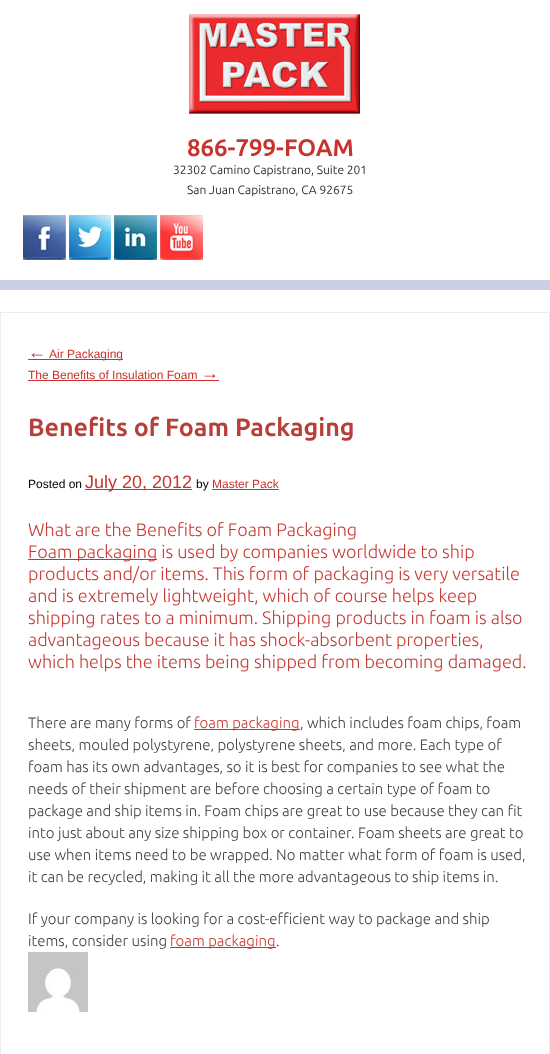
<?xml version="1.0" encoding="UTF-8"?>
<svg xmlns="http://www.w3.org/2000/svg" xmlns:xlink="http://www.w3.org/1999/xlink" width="550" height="1054">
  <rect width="100%" height="100%" fill="#ffffff" />
  <image x="189" y="14" width="171" height="100" xlink:href="image1.png" />
  <image x="23" y="215" width="43" height="45" xlink:href="image2.png" />
  <image x="69" y="215" width="42" height="45" xlink:href="image3.png" />
  <image x="114" y="215" width="43" height="45" xlink:href="image4.png" />
  <image x="160" y="215" width="43" height="45" xlink:href="image5.png" />
  <rect y="280" width="550" height="10" fill="#cacfe3" />
  <rect x="0.5" y="312.5" width="549" height="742" fill="none" stroke="#ededed" />
  <rect x="28" y="359" width="95" height="1" fill="#c83232" />
  <rect x="28" y="380" width="191" height="1" fill="#c83232" />
  <rect x="85" y="489" width="107" height="1" fill="#c83232" />
  <rect x="212" y="489" width="67" height="1" fill="#c83232" />
  <rect x="28" y="559" width="129" height="1" fill="#c83232" />
  <rect x="194" y="729" width="106" height="1" fill="#c83232" />
  <rect x="170" y="947" width="106" height="1" fill="#c83232" />
  <image x="28" y="952" width="60" height="60" xlink:href="image6.png" />
  <text x="187" y="156" style="font-family: Ubuntu; font-size: 24px; font-weight: bold; fill: #c8332d">866-799-FOAM</text>
  <text x="173" y="174" style="font-family: Ubuntu; font-size: 12px; fill: #302c2d">32302 Camino Capistrano, Suite 201</text>
  <text x="187" y="194" style="font-family: Ubuntu; font-size: 12px; fill: #302c2d">San Juan Capistrano, CA 92675</text>
  <text x="28" y="358" style="font-family: Liberation Sans; font-size: 18px; fill: #c8332d">←</text>
  <text x="49" y="358" style="font-family: Liberation Sans; font-size: 12px; fill: #c8332d">Air Packaging</text>
  <text x="28" y="379" style="font-family: Liberation Sans; font-size: 12px; fill: #c8332d">The Benefits of Insulation Foam</text>
  <text x="201" y="379" style="font-family: Liberation Sans; font-size: 18px; fill: #c8332d">→</text>
  <text x="28" y="436" style="font-family: Ubuntu; font-size: 25px; font-weight: bold; fill: #b83f39">Benefits of Foam Packaging</text>
  <text x="28" y="488" style="font-family: Liberation Sans; font-size: 12px; fill: #000000">Posted on</text>
  <text x="85" y="488" style="font-family: Liberation Sans; font-size: 18px; fill: #c8332d">July 20, 2012</text>
  <text x="196" y="488" style="font-family: Liberation Sans; font-size: 12px; fill: #000000">by</text>
  <text x="212" y="488" style="font-family: Liberation Sans; font-size: 12px; fill: #c8332d">Master Pack</text>
  <text x="28" y="536" style="font-family: Ubuntu; font-size: 18px; font-weight: 300; fill: #c8332d">What are the Benefits of Foam Packaging</text>
  <text x="28" y="558" style="font-family: Ubuntu; font-size: 18px; font-weight: 300; fill: #c8332d">Foam packaging is used by companies worldwide to ship</text>
  <text x="28" y="580" style="font-family: Ubuntu; font-size: 18px; font-weight: 300; fill: #c8332d">products and/or items. This form of packaging is very versatile</text>
  <text x="28" y="602" style="font-family: Ubuntu; font-size: 18px; font-weight: 300; fill: #c8332d">and is extremely lightweight, which of course helps keep</text>
  <text x="28" y="624" style="font-family: Ubuntu; font-size: 18px; font-weight: 300; fill: #c8332d">shipping rates to a minimum. Shipping products in foam is also</text>
  <text x="28" y="646" style="font-family: Ubuntu; font-size: 18px; font-weight: 300; fill: #c8332d">advantageous because it has shock-absorbent properties,</text>
  <text x="28" y="668" style="font-family: Ubuntu; font-size: 18px; font-weight: 300; fill: #c8332d">which helps the items being shipped from becoming damaged.</text>
  <text x="28" y="728" style="font-family: Ubuntu; font-size: 15px; font-weight: 300; fill: #3d3a3a">There are many forms of</text>
  <text x="194" y="728" style="font-family: Ubuntu; font-size: 15px; font-weight: 300; fill: #c8332d">foam packaging</text>
  <text x="300" y="728" style="font-family: Ubuntu; font-size: 15px; font-weight: 300; fill: #3d3a3a">, which includes foam chips, foam</text>
  <text x="28" y="750" style="font-family: Ubuntu; font-size: 15px; font-weight: 300; fill: #3d3a3a">sheets, mouled polystyrene, polystyrene sheets, and more. Each type of</text>
  <text x="28" y="772" style="font-family: Ubuntu; font-size: 15px; font-weight: 300; fill: #3d3a3a">foam has its own advantages, so it is best for companies to see what the</text>
  <text x="28" y="794" style="font-family: Ubuntu; font-size: 15px; font-weight: 300; fill: #3d3a3a">needs of their shipment are before choosing a certain type of foam to</text>
  <text x="28" y="816" style="font-family: Ubuntu; font-size: 15px; font-weight: 300; fill: #3d3a3a">package and ship items in. Foam chips are great to use because they can fit</text>
  <text x="28" y="838" style="font-family: Ubuntu; font-size: 15px; font-weight: 300; fill: #3d3a3a">into just about any size shipping box or container. Foam sheets are great to</text>
  <text x="28" y="860" style="font-family: Ubuntu; font-size: 15px; font-weight: 300; fill: #3d3a3a">use when items need to be wrapped. No matter what form of foam is used,</text>
  <text x="28" y="882" style="font-family: Ubuntu; font-size: 15px; font-weight: 300; fill: #3d3a3a">it can be recycled, making it all the more advantageous to ship items in.</text>
  <text x="28" y="924" style="font-family: Ubuntu; font-size: 15px; font-weight: 300; fill: #3d3a3a">If your company is looking for a cost-efficient way to package and ship</text>
  <text x="28" y="946" style="font-family: Ubuntu; font-size: 15px; font-weight: 300; fill: #3d3a3a">items, consider using</text>
  <text x="170" y="946" style="font-family: Ubuntu; font-size: 15px; font-weight: 300; fill: #c8332d">foam packaging</text>
  <text x="276" y="946" style="font-family: Ubuntu; font-size: 15px; font-weight: 300; fill: #3d3a3a">.</text>
</svg>
